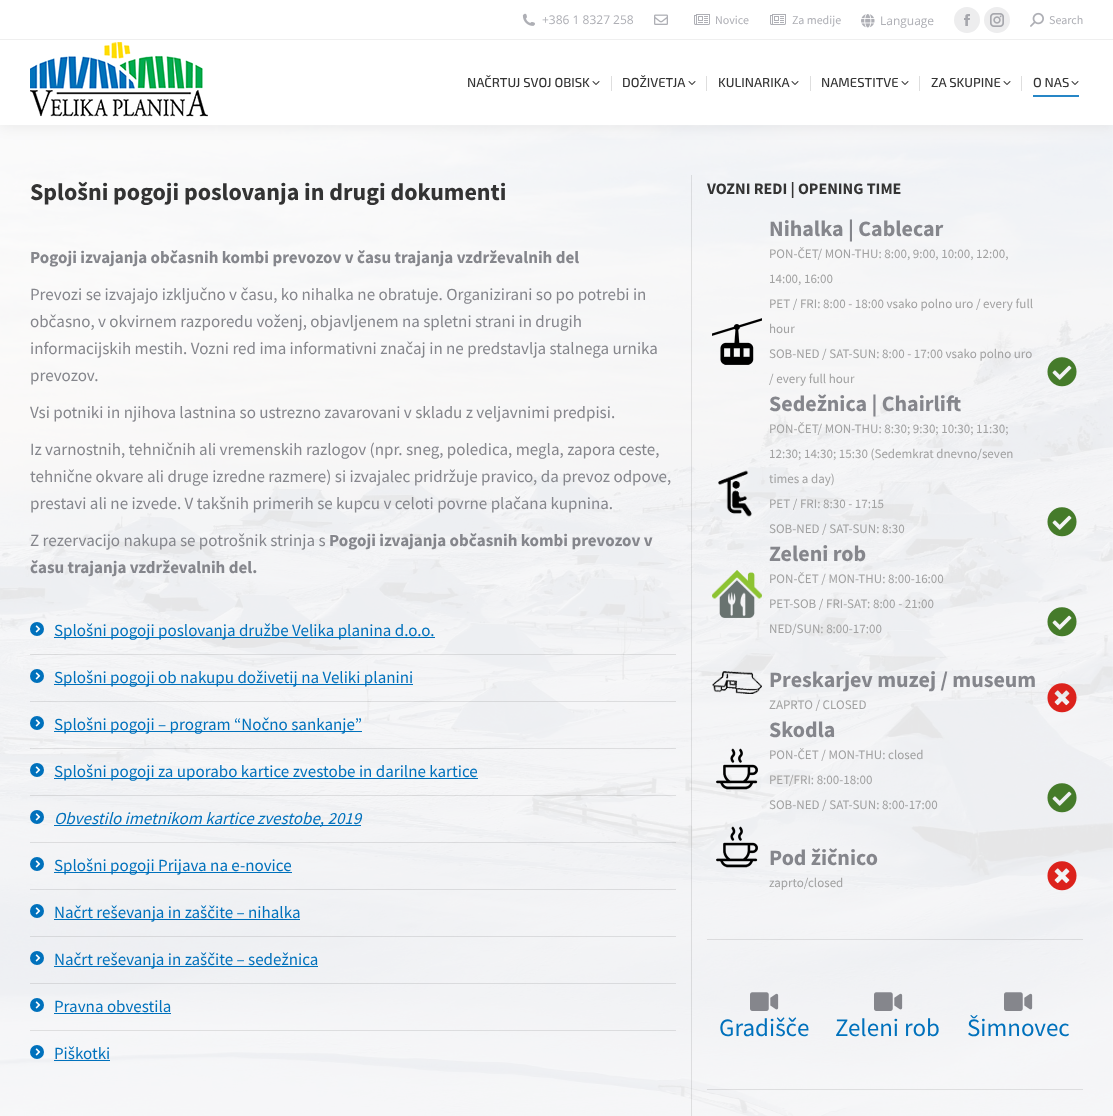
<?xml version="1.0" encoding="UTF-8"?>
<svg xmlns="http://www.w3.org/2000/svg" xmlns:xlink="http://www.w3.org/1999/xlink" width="1113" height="1116">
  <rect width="100%" height="100%" fill="#ffffff" />
  <image x="0" y="125" width="1113" height="991" xlink:href="image1.png" />
  <rect x="-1" y="-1" width="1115" height="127" fill="#000000" fill-opacity="0.07" filter="blur(7.5px)" />
  <rect width="1113" height="125" fill="#ffffff" />
  <image x="522" y="13" width="13" height="13" xlink:href="image2.png" />
  <image x="654" y="14" width="14" height="11" xlink:href="image3.png" />
  <image x="694" y="14" width="16" height="11" xlink:href="image4.png" />
  <image x="770" y="14" width="16" height="11" xlink:href="image4.png" />
  <image x="861" y="14" width="14" height="14" xlink:href="image5.png" />
  <circle cx="967" cy="20" r="13" fill="#ededee" />
  <image x="964" y="14" width="6" height="12" xlink:href="image6.png" />
  <circle cx="997" cy="20" r="13" fill="#ededee" />
  <image x="990" y="13" width="14" height="14" xlink:href="image7.png" />
  <image x="1030" y="12" width="14" height="15" xlink:href="image8.png" />
  <rect y="39" width="1113" height="1" fill="#efefef" />
  <image x="30" y="42" width="178" height="75" xlink:href="image9.png" />
  <image x="592" y="81" width="8" height="4" xlink:href="image10.png" />
  <rect x="611" y="76" width="1" height="15" fill="#dedede" />
  <image x="688" y="81" width="8" height="4" xlink:href="image10.png" />
  <rect x="706" y="76" width="1" height="15" fill="#dedede" />
  <image x="791" y="81" width="8" height="4" xlink:href="image10.png" />
  <rect x="810" y="76" width="1" height="15" fill="#dedede" />
  <image x="901" y="81" width="8" height="4" xlink:href="image10.png" />
  <rect x="919" y="76" width="1" height="15" fill="#dedede" />
  <image x="1003" y="81" width="8" height="4" xlink:href="image10.png" />
  <rect x="1021" y="76" width="1" height="15" fill="#dedede" />
  <image x="1071" y="81" width="8" height="4" xlink:href="image10.png" />
  <rect x="1033" y="95" width="46" height="2" fill="#2686c6" />
  <circle cx="37" cy="629" r="7" fill="#0071bc" />
  <rect x="54" y="637" width="381" height="1" fill="#0071bc" />
  <image x="35" y="625" width="6" height="8" xlink:href="image11.png" />
  <rect x="30" y="654" width="646" height="1" fill="#333333" fill-opacity="0.12" />
  <circle cx="37" cy="676" r="7" fill="#0071bc" />
  <rect x="54" y="684" width="359" height="1" fill="#0071bc" />
  <image x="35" y="672" width="6" height="8" xlink:href="image11.png" />
  <rect x="30" y="701" width="646" height="1" fill="#333333" fill-opacity="0.12" />
  <circle cx="37" cy="723" r="7" fill="#0071bc" />
  <rect x="54" y="731" width="308" height="1" fill="#0071bc" />
  <image x="35" y="719" width="6" height="8" xlink:href="image11.png" />
  <rect x="30" y="748" width="646" height="1" fill="#333333" fill-opacity="0.12" />
  <circle cx="37" cy="770" r="7" fill="#0071bc" />
  <rect x="54" y="778" width="424" height="1" fill="#0071bc" />
  <image x="35" y="766" width="6" height="8" xlink:href="image11.png" />
  <rect x="30" y="795" width="646" height="1" fill="#333333" fill-opacity="0.12" />
  <circle cx="37" cy="817" r="7" fill="#0071bc" />
  <rect x="54" y="825" width="307" height="1" fill="#0071bc" />
  <image x="35" y="813" width="6" height="8" xlink:href="image11.png" />
  <rect x="30" y="842" width="646" height="1" fill="#333333" fill-opacity="0.12" />
  <circle cx="37" cy="864" r="7" fill="#0071bc" />
  <rect x="54" y="872" width="238" height="1" fill="#0071bc" />
  <image x="35" y="860" width="6" height="8" xlink:href="image11.png" />
  <rect x="30" y="889" width="646" height="1" fill="#333333" fill-opacity="0.12" />
  <circle cx="37" cy="911" r="7" fill="#0071bc" />
  <rect x="54" y="919" width="246" height="1" fill="#0071bc" />
  <image x="35" y="907" width="6" height="8" xlink:href="image11.png" />
  <rect x="30" y="936" width="646" height="1" fill="#333333" fill-opacity="0.12" />
  <circle cx="37" cy="958" r="7" fill="#0071bc" />
  <rect x="54" y="966" width="264" height="1" fill="#0071bc" />
  <image x="35" y="954" width="6" height="8" xlink:href="image11.png" />
  <rect x="30" y="983" width="646" height="1" fill="#333333" fill-opacity="0.12" />
  <circle cx="37" cy="1005" r="7" fill="#0071bc" />
  <rect x="54" y="1013" width="117" height="1" fill="#0071bc" />
  <image x="35" y="1001" width="6" height="8" xlink:href="image11.png" />
  <rect x="30" y="1030" width="646" height="1" fill="#333333" fill-opacity="0.12" />
  <circle cx="37" cy="1052" r="7" fill="#0071bc" />
  <rect x="54" y="1060" width="56" height="1" fill="#0071bc" />
  <image x="35" y="1048" width="6" height="8" xlink:href="image11.png" />
  <rect x="691" y="175" width="1" height="941" fill="#333333" fill-opacity="0.12" />
  <image x="712" y="318" width="50" height="47" xlink:href="image12.png" />
  <image x="1047" y="357" width="30" height="30" xlink:href="image13.png" />
  <image x="718" y="470" width="34" height="47" xlink:href="image14.png" />
  <image x="1047" y="507" width="30" height="30" xlink:href="image15.png" />
  <image x="712" y="570" width="50" height="48" xlink:href="image16.png" />
  <image x="1047" y="607" width="30" height="30" xlink:href="image17.png" />
  <image x="712" y="671" width="50" height="23" xlink:href="image18.png" />
  <image x="1047" y="683" width="30" height="30" xlink:href="image19.png" />
  <image x="716" y="748" width="42" height="42" xlink:href="image20.png" />
  <image x="1047" y="783" width="30" height="30" xlink:href="image21.png" />
  <image x="716" y="826" width="42" height="42" xlink:href="image22.png" />
  <image x="1047" y="861" width="30" height="30" xlink:href="image23.png" />
  <rect x="707" y="939" width="376" height="1" fill="#333333" fill-opacity="0.12" />
  <image x="750" y="992" width="29" height="19" xlink:href="image24.png" />
  <image x="874" y="992" width="29" height="19" xlink:href="image25.png" />
  <image x="1004" y="992" width="29" height="19" xlink:href="image26.png" />
  <rect x="707" y="1089" width="376" height="1" fill="#333333" fill-opacity="0.12" />
  <text x="542" y="24" style="font-family: Open Sans; font-size: 12px; fill: #aeafb5">+386 1 8327 258</text>
  <text x="715" y="24" style="font-family: Source Sans Pro; font-size: 12px; fill: #aeafb5">Novice</text>
  <text x="792" y="24" style="font-family: Source Sans Pro; font-size: 12px; fill: #aeafb5">Za medije</text>
  <text x="880" y="25" style="font-family: Open Sans; font-size: 12px; fill: #aeafb5">Language</text>
  <text x="1049" y="24" style="font-family: Source Sans Pro; font-size: 12px; fill: #aeafb5">Search</text>
  <text x="467" y="87" style="font-family: 'Exo 2'; font-size: 13px; font-weight: 500; fill: #333333">NAČRTUJ SVOJ OBISK</text>
  <text x="622" y="87" style="font-family: 'Exo 2'; font-size: 13px; font-weight: 500; fill: #333333">DOŽIVETJA</text>
  <text x="718" y="87" style="font-family: 'Exo 2'; font-size: 13px; font-weight: 500; fill: #333333">KULINARIKA</text>
  <text x="821" y="87" style="font-family: 'Exo 2'; font-size: 13px; font-weight: 500; fill: #333333">NAMESTITVE</text>
  <text x="931" y="87" style="font-family: 'Exo 2'; font-size: 13px; font-weight: 500; fill: #333333">ZA SKUPINE</text>
  <text x="1033" y="87" style="font-family: 'Exo 2'; font-size: 13px; font-weight: 500; fill: #333333">O NAS</text>
  <text x="30" y="200" style="font-family: Source Sans Pro; font-size: 24px; font-weight: bold; fill: #333333">Splošni pogoji poslovanja in drugi dokumenti</text>
  <text x="30" y="263" style="font-family: Source Sans Pro; font-size: 17px; font-weight: bold; fill: #85868c">Pogoji izvajanja občasnih kombi prevozov v času trajanja vzdrževalnih del</text>
  <text x="30" y="300" style="font-family: Source Sans Pro; font-size: 17px; fill: #85868c">Prevozi se izvajajo izključno v času, ko nihalka ne obratuje. Organizirani so po potrebi in</text>
  <text x="30" y="327" style="font-family: Source Sans Pro; font-size: 17px; fill: #85868c">občasno, v okvirnem razporedu voženj, objavljenem na spletni strani in drugih</text>
  <text x="30" y="354" style="font-family: Source Sans Pro; font-size: 17px; fill: #85868c">informacijskih mestih. Vozni red ima informativni značaj in ne predstavlja stalnega urnika</text>
  <text x="30" y="381" style="font-family: Source Sans Pro; font-size: 17px; fill: #85868c">prevozov.</text>
  <text x="30" y="418" style="font-family: Source Sans Pro; font-size: 17px; fill: #85868c">Vsi potniki in njihova lastnina so ustrezno zavarovani v skladu z veljavnimi predpisi.</text>
  <text x="30" y="455" style="font-family: Source Sans Pro; font-size: 17px; fill: #85868c">Iz varnostnih, tehničnih ali vremenskih razlogov (npr. sneg, poledica, megla, zapora ceste,</text>
  <text x="30" y="482" style="font-family: Source Sans Pro; font-size: 17px; fill: #85868c">tehnične okvare ali druge izredne razmere) si izvajalec pridržuje pravico, da prevoz odpove,</text>
  <text x="30" y="509" style="font-family: Source Sans Pro; font-size: 17px; fill: #85868c">prestavi ali ne izvede. V takšnih primerih se kupcu v celoti povrne plačana kupnina.</text>
  <text x="30" y="546" style="font-family: Source Sans Pro; font-size: 17px; fill: #85868c">Z rezervacijo nakupa se potrošnik strinja s</text>
  <text x="329" y="546" style="font-family: Source Sans Pro; font-size: 17px; font-weight: bold; fill: #85868c">Pogoji izvajanja občasnih kombi prevozov v</text>
  <text x="30" y="573" style="font-family: Source Sans Pro; font-size: 17px; font-weight: bold; fill: #85868c">času trajanja vzdrževalnih del.</text>
  <text x="54" y="636" style="font-family: Source Sans Pro; font-size: 17px; fill: #0071bc">Splošni pogoji poslovanja družbe Velika planina d.o.o.</text>
  <text x="54" y="683" style="font-family: Source Sans Pro; font-size: 17px; fill: #0071bc">Splošni pogoji ob nakupu doživetij na Veliki planini</text>
  <text x="54" y="730" style="font-family: Source Sans Pro; font-size: 17px; fill: #0071bc">Splošni pogoji – program “Nočno sankanje”</text>
  <text x="54" y="777" style="font-family: Source Sans Pro; font-size: 17px; fill: #0071bc">Splošni pogoji za uporabo kartice zvestobe in darilne kartice</text>
  <text x="54" y="824" style="font-family: Source Sans Pro; font-size: 17px; font-style: italic; fill: #0071bc">Obvestilo imetnikom kartice zvestobe, 2019</text>
  <text x="54" y="871" style="font-family: Source Sans Pro; font-size: 17px; fill: #0071bc">Splošni pogoji Prijava na e-novice</text>
  <text x="54" y="918" style="font-family: Source Sans Pro; font-size: 17px; fill: #0071bc">Načrt reševanja in zaščite – nihalka</text>
  <text x="54" y="965" style="font-family: Source Sans Pro; font-size: 17px; fill: #0071bc">Načrt reševanja in zaščite – sedežnica</text>
  <text x="54" y="1012" style="font-family: Source Sans Pro; font-size: 17px; fill: #0071bc">Pravna obvestila</text>
  <text x="54" y="1059" style="font-family: Source Sans Pro; font-size: 17px; fill: #0071bc">Piškotki</text>
  <text x="707" y="194" style="font-family: Source Sans Pro; font-size: 16px; font-weight: bold; fill: #333333">VOZNI REDI | OPENING TIME</text>
  <text x="769" y="236" style="font-family: Source Sans Pro; font-size: 22px; font-weight: bold; fill: #85868c">Nihalka | Cablecar</text>
  <text x="769" y="258" style="font-family: Source Sans Pro; font-size: 13px; fill: #a1a1a1">PON-ČET/ MON-THU: 8:00, 9:00, 10:00, 12:00,</text>
  <text x="769" y="283" style="font-family: Source Sans Pro; font-size: 13px; fill: #a1a1a1">14:00, 16:00</text>
  <text x="769" y="308" style="font-family: Source Sans Pro; font-size: 13px; fill: #a1a1a1">PET / FRI: 8:00 - 18:00 vsako polno uro / every full</text>
  <text x="769" y="333" style="font-family: Source Sans Pro; font-size: 13px; fill: #a1a1a1">hour</text>
  <text x="769" y="358" style="font-family: Source Sans Pro; font-size: 13px; fill: #a1a1a1">SOB-NED / SAT-SUN: 8:00 - 17:00 vsako polno uro</text>
  <text x="769" y="383" style="font-family: Source Sans Pro; font-size: 13px; fill: #a1a1a1">/ every full hour</text>
  <text x="769" y="411" style="font-family: Source Sans Pro; font-size: 22px; font-weight: bold; fill: #85868c">Sedežnica | Chairlift</text>
  <text x="769" y="433" style="font-family: Source Sans Pro; font-size: 13px; fill: #a1a1a1">PON-ČET/ MON-THU: 8:30; 9:30; 10:30; 11:30;</text>
  <text x="769" y="458" style="font-family: Source Sans Pro; font-size: 13px; fill: #a1a1a1">12:30; 14:30; 15:30 (Sedemkrat dnevno/seven</text>
  <text x="769" y="483" style="font-family: Source Sans Pro; font-size: 13px; fill: #a1a1a1">times a day)</text>
  <text x="769" y="508" style="font-family: Source Sans Pro; font-size: 13px; fill: #a1a1a1">PET / FRI: 8:30 - 17:15</text>
  <text x="769" y="533" style="font-family: Source Sans Pro; font-size: 13px; fill: #a1a1a1">SOB-NED / SAT-SUN: 8:30</text>
  <text x="769" y="561" style="font-family: Source Sans Pro; font-size: 22px; font-weight: bold; fill: #85868c">Zeleni rob</text>
  <text x="769" y="583" style="font-family: Source Sans Pro; font-size: 13px; fill: #a1a1a1">PON-ČET / MON-THU: 8:00-16:00</text>
  <text x="769" y="608" style="font-family: Source Sans Pro; font-size: 13px; fill: #a1a1a1">PET-SOB / FRI-SAT: 8:00 - 21:00</text>
  <text x="769" y="633" style="font-family: Source Sans Pro; font-size: 13px; fill: #a1a1a1">NED/SUN: 8:00-17:00</text>
  <text x="769" y="687" style="font-family: Source Sans Pro; font-size: 22px; font-weight: bold; fill: #85868c">Preskarjev muzej / museum</text>
  <text x="769" y="709" style="font-family: Source Sans Pro; font-size: 13px; fill: #a1a1a1">ZAPRTO / CLOSED</text>
  <text x="769" y="737" style="font-family: Source Sans Pro; font-size: 22px; font-weight: bold; fill: #85868c">Skodla</text>
  <text x="769" y="759" style="font-family: Source Sans Pro; font-size: 13px; fill: #a1a1a1">PON-ČET / MON-THU: closed</text>
  <text x="769" y="784" style="font-family: Source Sans Pro; font-size: 13px; fill: #a1a1a1">PET/FRI: 8:00-18:00</text>
  <text x="769" y="809" style="font-family: Source Sans Pro; font-size: 13px; fill: #a1a1a1">SOB-NED / SAT-SUN: 8:00-17:00</text>
  <text x="769" y="865" style="font-family: Source Sans Pro; font-size: 22px; font-weight: bold; fill: #85868c">Pod žičnico</text>
  <text x="769" y="887" style="font-family: Source Sans Pro; font-size: 13px; fill: #a1a1a1">zaprto/closed</text>
  <text x="719" y="1036" style="font-family: Source Sans Pro; font-size: 25px; fill: #0071bc">Gradišče</text>
  <text x="835" y="1036" style="font-family: Source Sans Pro; font-size: 25px; fill: #0071bc">Zeleni rob</text>
  <text x="967" y="1036" style="font-family: Source Sans Pro; font-size: 25px; fill: #0071bc">Šimnovec</text>
</svg>
